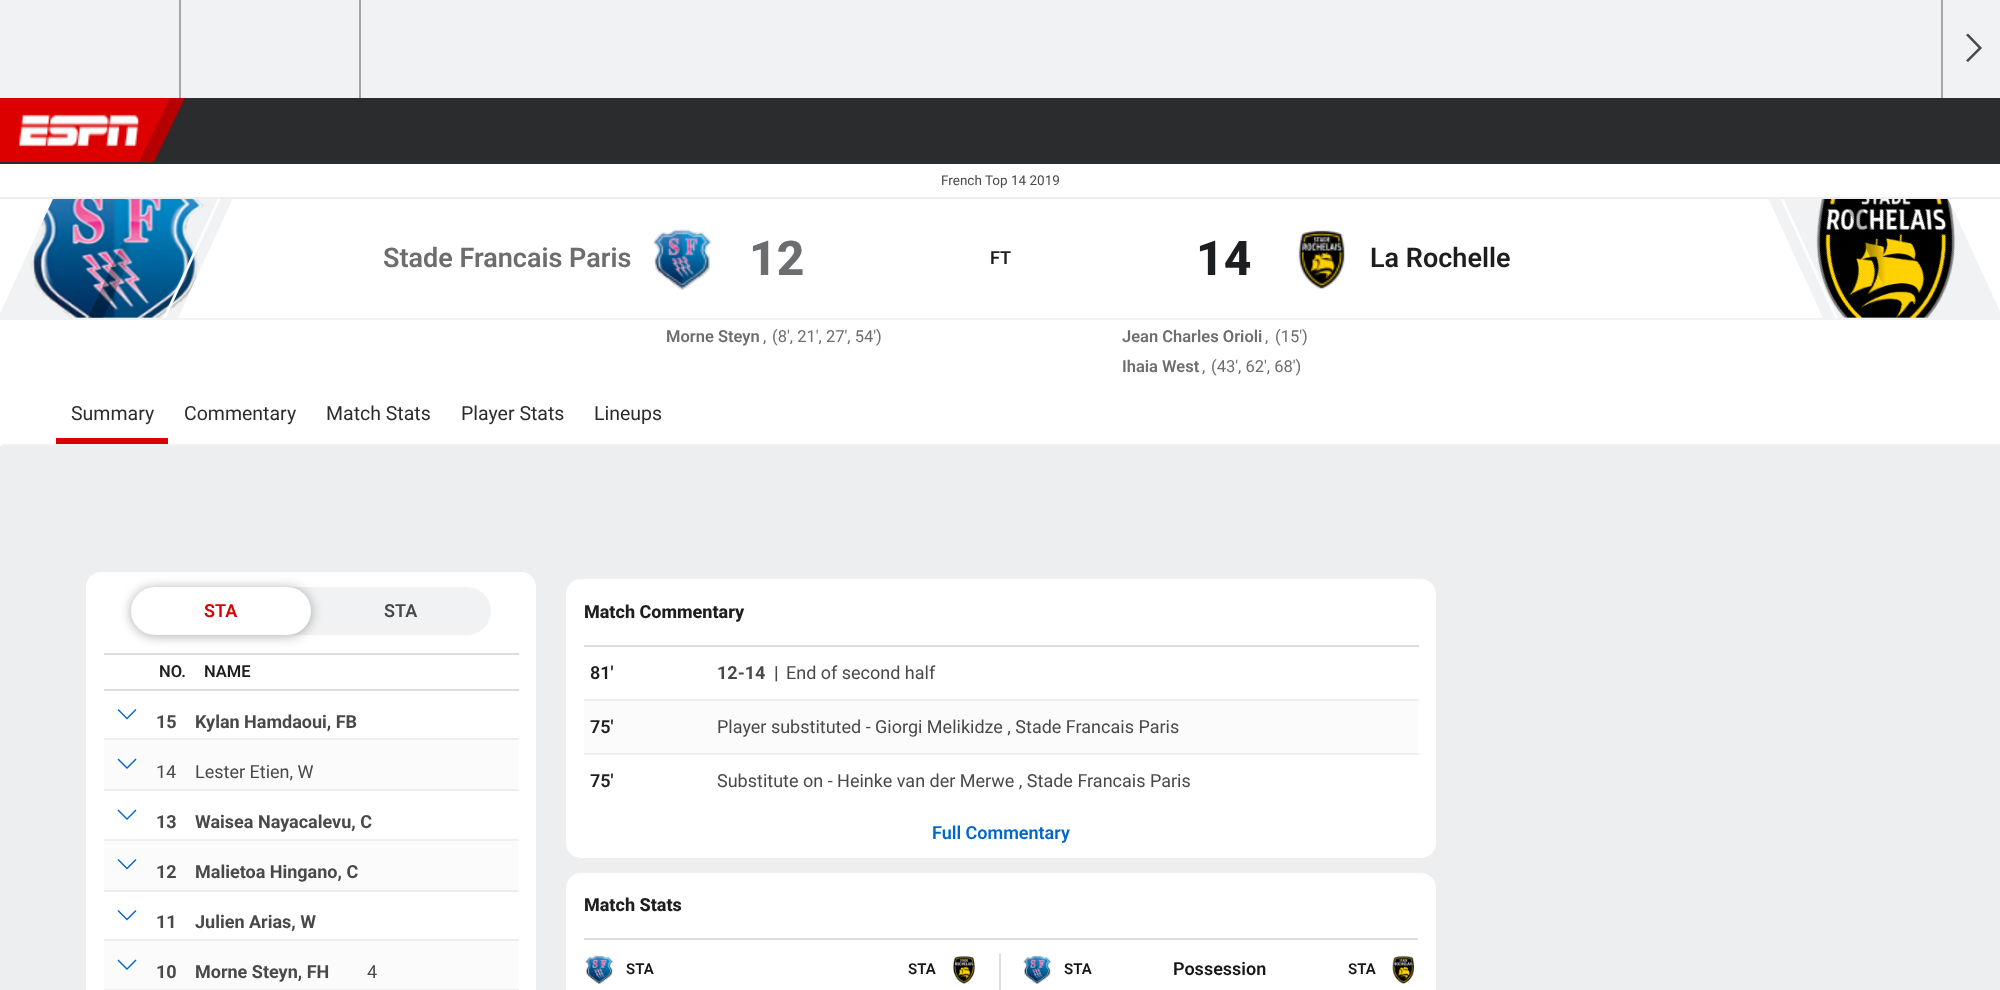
<?xml version="1.0" encoding="UTF-8"?>
<svg xmlns="http://www.w3.org/2000/svg" xmlns:xlink="http://www.w3.org/1999/xlink" width="2000" height="990">
  <defs>
    <linearGradient id="g1" gradientUnits="userSpaceOnUse" x1="116" y1="258" x2="131" y2="258"><stop offset="0" stop-color="#000000" stop-opacity="0.3" /><stop offset="1" stop-color="#000000" stop-opacity="0" /></linearGradient>
    <linearGradient id="g2" gradientUnits="userSpaceOnUse" x1="1871" y1="258" x2="1886" y2="258"><stop offset="0" stop-color="#000000" stop-opacity="0.3" /><stop offset="1" stop-color="#000000" stop-opacity="0" /></linearGradient>
  </defs>
  <rect width="100%" height="100%" fill="#edeef0" />
  <rect width="2000" height="98" fill="#f1f2f3" />
  <rect x="179" width="2" height="98" fill="#a5a6a7" />
  <rect x="359" width="2" height="98" fill="#a5a6a7" />
  <rect x="1941" width="2" height="98" fill="#a5a6a7" />
  <path d="M 1968 33.5 l -2 1.5 l 12.5 13 l -12.5 12.5 l 2 1.5 l 14 -14 z" fill="#48494a" />
  <rect y="98" width="2000" height="66" fill="#2b2c2d" />
  <path d="M 0 98 h 185 l -31 64 h -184 z" fill="#b40000" />
  <path d="M -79 98 h 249 l -31 64 h -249 z" fill="#dd0000" />
  <image x="19" y="114" width="121" height="33" xlink:href="image1.png" />
  <rect y="164" width="2000" height="154" fill="#ffffff" />
  <rect y="318" width="2000" height="2" fill="#f1f2f3" />
  <path d="M 53 198 h 180 l -55 120 h -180 z" fill="#f1f2f3" />
  <image x="30" y="199" width="174" height="119" xlink:href="image2.png" />
  <path d="M 143 198 h 15 l -55 120 h -15 z" fill="url(#g1)" />
  <path d="M 218 198 h 3 l -55 120 h -3 z" fill="#ffffff" />
  <path d="M 1768 198 h 180 l 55 120 h -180 z" fill="#f1f2f3" />
  <image x="1816" y="199" width="140" height="119" xlink:href="image5.png" />
  <path d="M 1780 198 h 3 l 55 120 h -3 z" fill="#ffffff" />
  <path d="M 1843 198 h 15 l 55 120 h -15 z" fill="url(#g2)" />
  <rect y="197" width="2000" height="2" fill="#edeef0" />
  <image x="652" y="229" width="60" height="61" xlink:href="image3.png" />
  <image x="1298" y="230" width="47" height="60" xlink:href="image4.png" />
  <rect y="320" width="2000" height="64" fill="#ffffff" />
  <rect y="384" width="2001" height="62" rx="1.5" fill="#ffffff" />
  <rect x="2" y="444" width="1998" height="2" fill="#f1f2f3" />
  <rect x="56" y="438" width="112" height="6" fill="#dd0000" />
  <rect x="86" y="572" width="450" height="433" rx="15" fill="#ffffff" />
  <rect x="131" y="587" width="360" height="48" rx="24" fill="#f1f2f3" />
  <rect x="104" y="653" width="415" height="2" fill="#dcdddf" />
  <rect x="131" y="588" width="180" height="48" rx="24" fill="#000000" fill-opacity="0.32" filter="blur(6px)" />
  <rect x="131" y="587" width="180" height="48" rx="24" fill="#ffffff" />
  <rect x="104" y="689" width="415" height="2" fill="#dcdddf" />
  <path d="M 136.5 710 l -1 -1 l -8.5 8.5 l -8.5 -8.5 l -1 1 l 9.5 9.5 z" fill="#0066cc" />
  <rect x="104" y="740" width="414" height="49" fill="#fbfbfb" />
  <rect x="104" y="738" width="415" height="2" fill="#edeef0" />
  <path d="M 136.5 759.5 l -1 -1 l -8.5 8.5 l -8.5 -8.5 l -1 1 l 9.5 9.5 z" fill="#0066cc" />
  <rect x="104" y="789" width="415" height="2" fill="#edeef0" />
  <path d="M 136.5 810.5 l -1 -1 l -8.5 8.5 l -8.5 -8.5 l -1 1 l 9.5 9.5 z" fill="#0066cc" />
  <rect x="104" y="841" width="414" height="49" fill="#fbfbfb" />
  <rect x="104" y="839" width="415" height="2" fill="#edeef0" />
  <path d="M 136.5 860 l -1 -1 l -8.5 8.5 l -8.5 -8.5 l -1 1 l 9.5 9.5 z" fill="#0066cc" />
  <rect x="104" y="890" width="415" height="2" fill="#edeef0" />
  <path d="M 136.5 911 l -1 -1 l -8.5 8.5 l -8.5 -8.5 l -1 1 l 9.5 9.5 z" fill="#0066cc" />
  <rect x="104" y="941" width="414" height="48" fill="#fbfbfb" />
  <rect x="104" y="939" width="415" height="2" fill="#edeef0" />
  <path d="M 136.5 960.5 l -1 -1 l -8.5 8.5 l -8.5 -8.5 l -1 1 l 9.5 9.5 z" fill="#0066cc" />
  <rect x="104" y="989" width="415" height="1" fill="#edeef0" />
  <rect x="566" y="579" width="870" height="279" rx="15" fill="#ffffff" />
  <rect x="584" y="645" width="835" height="2" fill="#dcdddf" />
  <rect x="584" y="701" width="834" height="52" fill="#fbfbfb" />
  <rect x="584" y="699" width="835" height="2" fill="#edeef0" />
  <rect x="584" y="753" width="835" height="2" fill="#edeef0" />
  <rect x="566" y="873" width="870" height="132" rx="15" fill="#ffffff" />
  <rect x="584" y="938" width="834" height="2" fill="#dcdddf" />
  <rect x="999" y="954" width="2" height="36" fill="#dcdddf" />
  <image x="585" y="955" width="29" height="29" xlink:href="image6.png" />
  <image x="953" y="955" width="22" height="29" xlink:href="image7.png" />
  <image x="1023" y="955" width="29" height="29" xlink:href="image8.png" />
  <image x="1392" y="955" width="22" height="29" xlink:href="image9.png" />
  <text x="941" y="185" style="font-family: Roboto; font-size: 13.5px; fill: #48494a">French Top 14 2019</text>
  <text x="383" y="267" style="font-family: Roboto; font-size: 27px; font-weight: 600; fill: #6c6d6f">Stade Francais Paris</text>
  <text x="749" y="275" style="font-family: Roboto; font-size: 48px; font-weight: 800; fill: #6c6d6f">12</text>
  <text x="990" y="264" style="font-family: Roboto; font-size: 18px; font-weight: 600; fill: #1d1e1f">FT</text>
  <text x="1196" y="275" style="font-family: Roboto; font-size: 48px; font-weight: 800; fill: #1d1e1f">14</text>
  <text x="1370" y="267" style="font-family: Roboto; font-size: 27px; font-weight: 600; fill: #1d1e1f">La Rochelle</text>
  <text x="666" y="342" style="font-family: Roboto; font-size: 16.5px; font-weight: 600; fill: #6c6d6f">Morne Steyn</text>
  <text x="763" y="342" style="font-family: Roboto; font-size: 16.5px; fill: #6c6d6f">,</text>
  <text x="772" y="342" style="font-family: Roboto; font-size: 16.5px; fill: #6c6d6f">(8', 21', 27', 54')</text>
  <text x="1122" y="342" style="font-family: Roboto; font-size: 16.5px; font-weight: 600; fill: #6c6d6f">Jean Charles Orioli</text>
  <text x="1265" y="342" style="font-family: Roboto; font-size: 16.5px; fill: #6c6d6f">,</text>
  <text x="1275" y="342" style="font-family: Roboto; font-size: 16.5px; fill: #6c6d6f">(15')</text>
  <text x="1122" y="372" style="font-family: Roboto; font-size: 16.5px; font-weight: 600; fill: #6c6d6f">Ihaia West</text>
  <text x="1202" y="372" style="font-family: Roboto; font-size: 16.5px; fill: #6c6d6f">,</text>
  <text x="1211" y="372" style="font-family: Roboto; font-size: 16.5px; fill: #6c6d6f">(43', 62', 68')</text>
  <text x="71" y="420" style="font-family: Roboto; font-size: 19.5px; fill: #2b2c2d">Summary</text>
  <text x="184" y="420" style="font-family: Roboto; font-size: 19.5px; fill: #2b2c2d">Commentary</text>
  <text x="326" y="420" style="font-family: Roboto; font-size: 19.5px; fill: #2b2c2d">Match Stats</text>
  <text x="461" y="420" style="font-family: Roboto; font-size: 19.5px; fill: #2b2c2d">Player Stats</text>
  <text x="594" y="420" style="font-family: Roboto; font-size: 19.5px; fill: #2b2c2d">Lineups</text>
  <text x="204" y="617" style="font-family: Roboto; font-size: 18px; font-weight: 600; fill: #dd0000">STA</text>
  <text x="384" y="617" style="font-family: Roboto; font-size: 18px; font-weight: 600; fill: #48494a">STA</text>
  <text x="159" y="677" style="font-family: Roboto; font-size: 16.5px; font-weight: 600; fill: #1d1e1f">NO.</text>
  <text x="204" y="677" style="font-family: Roboto; font-size: 16.5px; font-weight: 600; fill: #1d1e1f">NAME</text>
  <text x="156" y="728" style="font-family: Roboto; font-size: 18px; font-weight: bold; fill: #48494a">15</text>
  <text x="195" y="728" style="font-family: Roboto; font-size: 18px; font-weight: bold; fill: #48494a">Kylan Hamdaoui, FB</text>
  <text x="156" y="778" style="font-family: Roboto; font-size: 18px; fill: #48494a">14</text>
  <text x="195" y="778" style="font-family: Roboto; font-size: 18px; fill: #48494a">Lester Etien, W</text>
  <text x="156" y="828" style="font-family: Roboto; font-size: 18px; font-weight: bold; fill: #48494a">13</text>
  <text x="195" y="828" style="font-family: Roboto; font-size: 18px; font-weight: bold; fill: #48494a">Waisea Nayacalevu, C</text>
  <text x="156" y="878" style="font-family: Roboto; font-size: 18px; font-weight: bold; fill: #48494a">12</text>
  <text x="195" y="878" style="font-family: Roboto; font-size: 18px; font-weight: bold; fill: #48494a">Malietoa Hingano, C</text>
  <text x="156" y="928" style="font-family: Roboto; font-size: 18px; font-weight: bold; fill: #48494a">11</text>
  <text x="195" y="928" style="font-family: Roboto; font-size: 18px; font-weight: bold; fill: #48494a">Julien Arias, W</text>
  <text x="156" y="978" style="font-family: Roboto; font-size: 18px; font-weight: bold; fill: #48494a">10</text>
  <text x="195" y="978" style="font-family: Roboto; font-size: 18px; font-weight: bold; fill: #48494a">Morne Steyn, FH</text>
  <text x="367" y="978" style="font-family: Roboto; font-size: 18px; fill: #48494a">4</text>
  <text x="584" y="618" style="font-family: Roboto; font-size: 18px; font-weight: 800; fill: #1d1e1f">Match Commentary</text>
  <text x="590" y="679" style="font-family: Roboto; font-size: 18px; font-weight: 600; fill: #1d1e1f">81'</text>
  <text x="717" y="679" style="font-family: Roboto; font-size: 18px; font-weight: bold; fill: #48494a">12-14</text>
  <text x="774" y="679" style="font-family: Roboto; font-size: 18px; font-weight: bold; fill: #48494a">|</text>
  <text x="786" y="679" style="font-family: Roboto; font-size: 18px; fill: #48494a">End of second half</text>
  <text x="590" y="733" style="font-family: Roboto; font-size: 18px; font-weight: 600; fill: #1d1e1f">75'</text>
  <text x="717" y="733" style="font-family: Roboto; font-size: 18px; fill: #48494a">Player substituted - Giorgi Melikidze , Stade Francais Paris</text>
  <text x="590" y="787" style="font-family: Roboto; font-size: 18px; font-weight: 600; fill: #1d1e1f">75'</text>
  <text x="717" y="787" style="font-family: Roboto; font-size: 18px; fill: #48494a">Substitute on - Heinke van der Merwe , Stade Francais Paris</text>
  <text x="932" y="839" style="font-family: Roboto; font-size: 18px; font-weight: 600; fill: #0066cc">Full Commentary</text>
  <text x="584" y="911" style="font-family: Roboto; font-size: 18px; font-weight: 800; fill: #1d1e1f">Match Stats</text>
  <text x="626" y="974" style="font-family: Roboto; font-size: 15px; font-weight: 600; fill: #151617">STA</text>
  <text x="908" y="974" style="font-family: Roboto; font-size: 15px; font-weight: 600; fill: #151617">STA</text>
  <text x="1064" y="974" style="font-family: Roboto; font-size: 15px; font-weight: 600; fill: #151617">STA</text>
  <text x="1173" y="975" style="font-family: Roboto; font-size: 18px; font-weight: 600; fill: #151617">Possession</text>
  <text x="1348" y="974" style="font-family: Roboto; font-size: 15px; font-weight: 600; fill: #151617">STA</text>
</svg>
